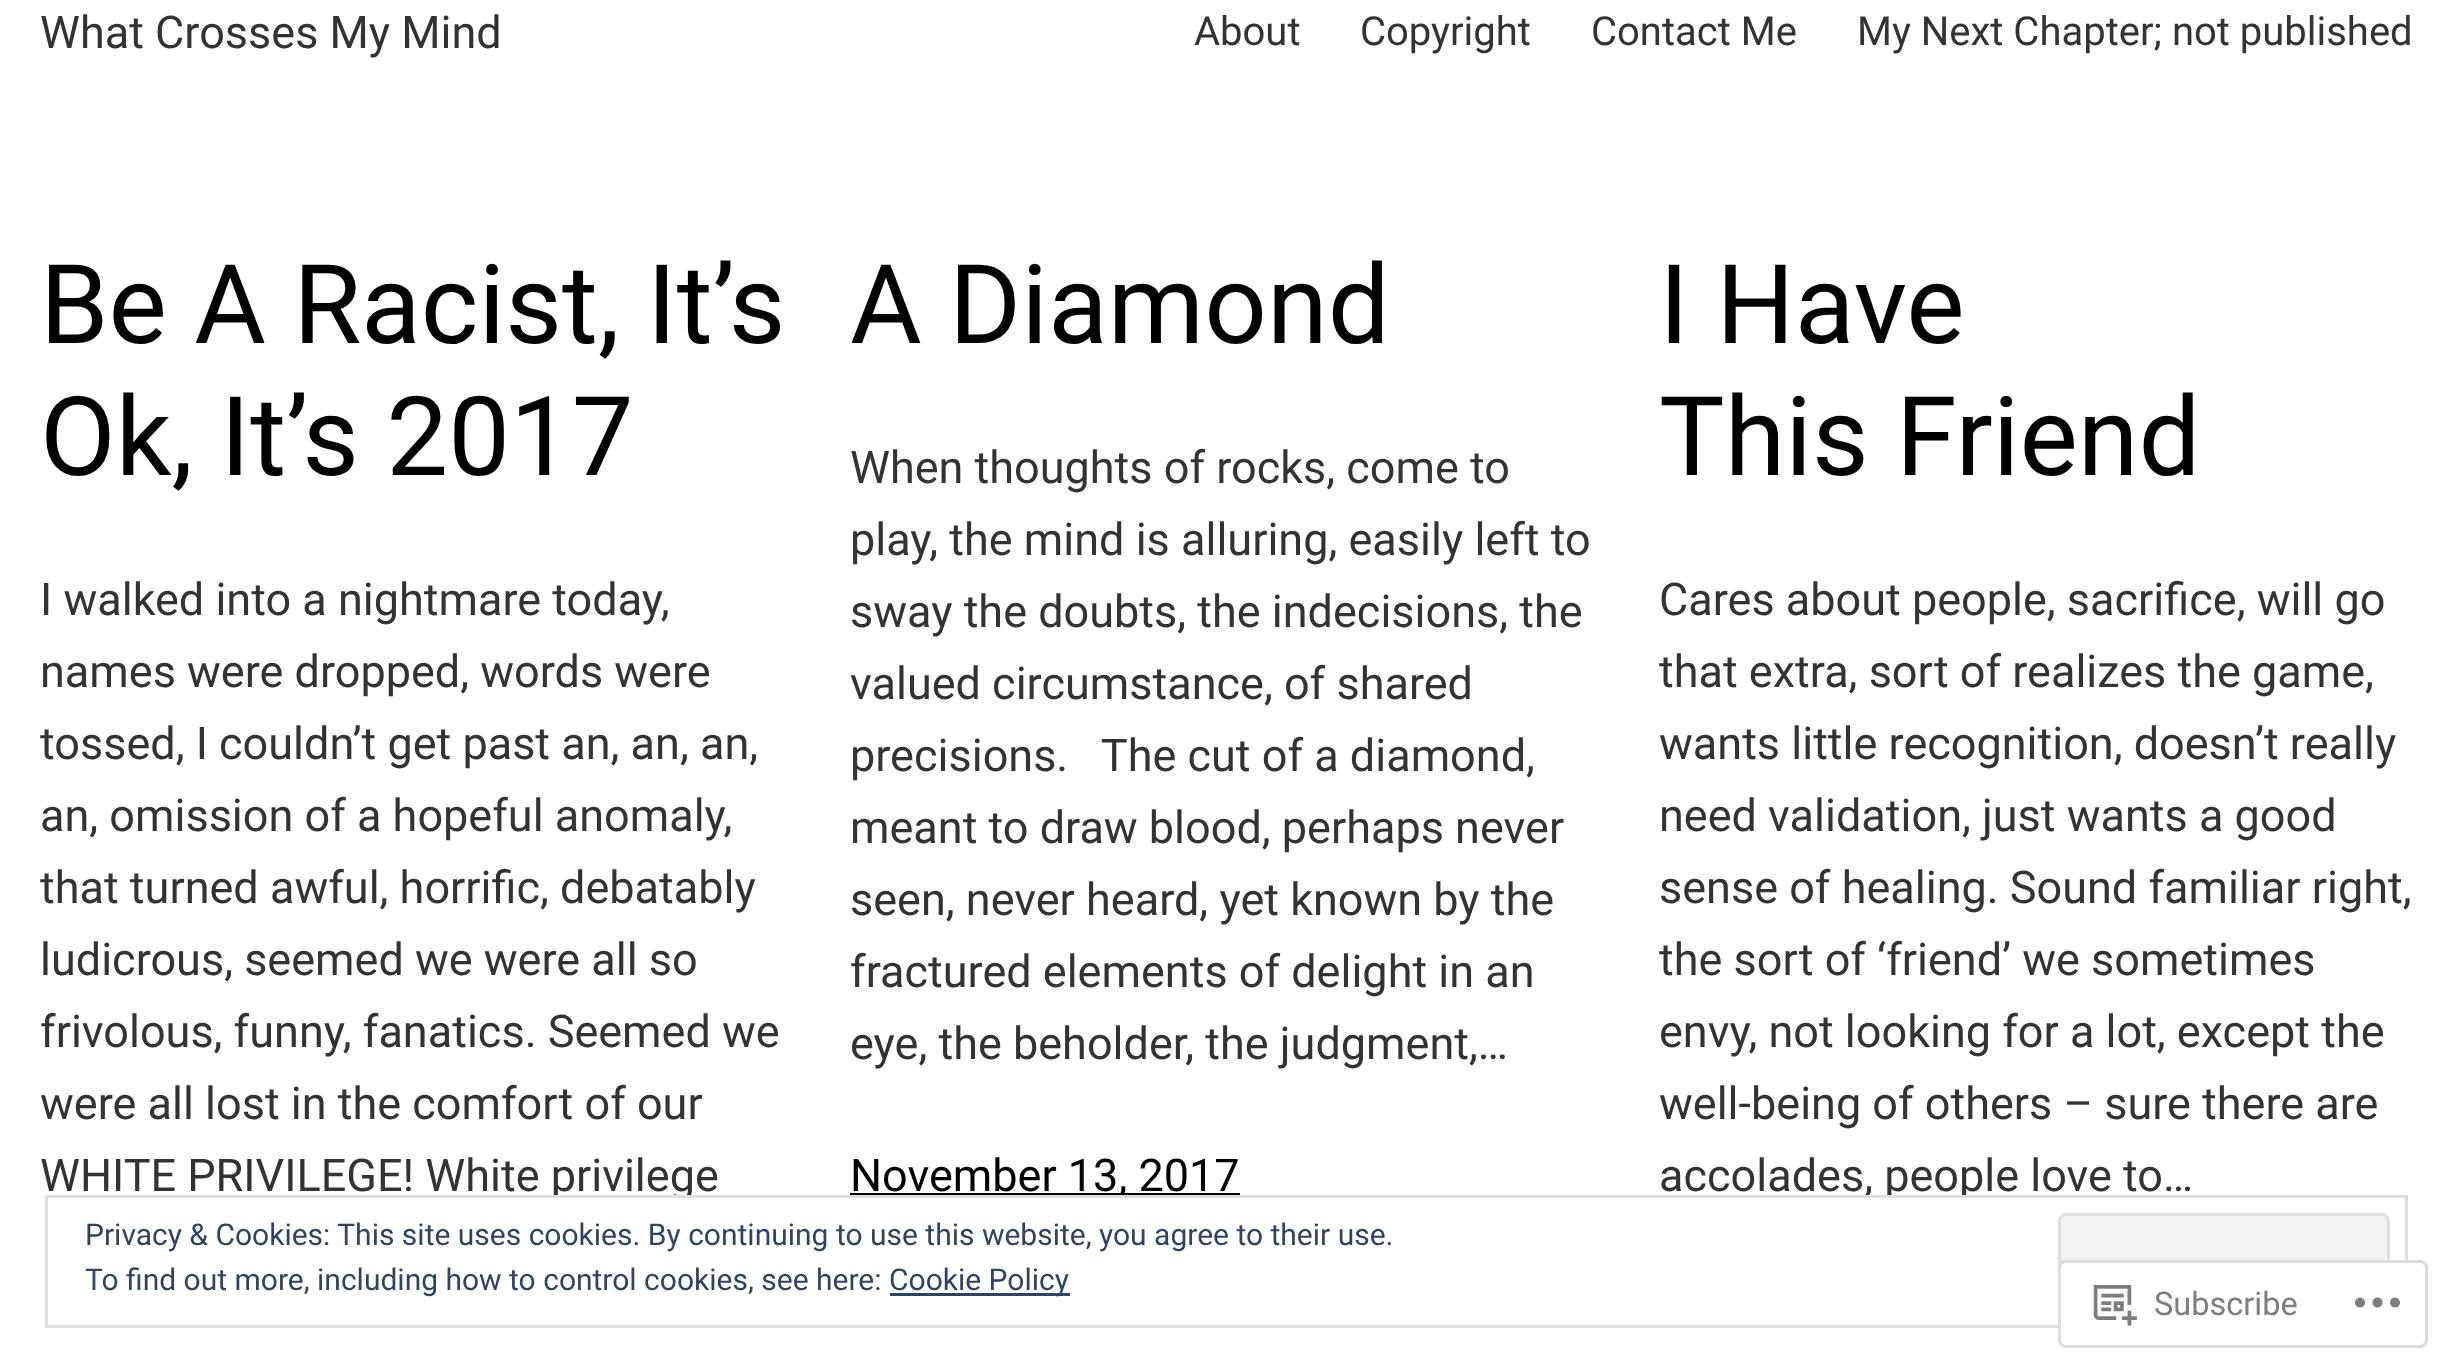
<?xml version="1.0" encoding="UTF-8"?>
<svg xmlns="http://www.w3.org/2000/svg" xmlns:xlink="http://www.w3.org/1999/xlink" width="2451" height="1372">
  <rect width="100%" height="100%" fill="#ffffff" />
  <rect x="850" y="1193" width="390" height="2" fill="#000000" />
  <text x="40" y="48" style="font-family: Roboto; font-size: 45px; fill: #333333">What Crosses My Mind</text>
  <text x="1194" y="45" style="font-family: Roboto; font-size: 40px; fill: #333333">About</text>
  <text x="1360" y="45" style="font-family: Roboto; font-size: 40px; fill: #333333">Copyright</text>
  <text x="1591" y="45" style="font-family: Roboto; font-size: 40px; fill: #333333">Contact Me</text>
  <text x="1857" y="45" style="font-family: Roboto; font-size: 40px; fill: #333333">My Next Chapter; not published</text>
  <text x="40" y="343" style="font-family: Roboto; font-size: 110px; fill: #000000">Be A Racist, It’s</text>
  <text x="40" y="475" style="font-family: Roboto; font-size: 110px; fill: #000000">Ok, It’s 2017</text>
  <text x="40" y="615" style="font-family: Roboto; font-size: 45px; fill: #333333">I walked into a nightmare today,</text>
  <text x="40" y="687" style="font-family: Roboto; font-size: 45px; fill: #333333">names were dropped, words were</text>
  <text x="40" y="759" style="font-family: Roboto; font-size: 45px; fill: #333333">tossed, I couldn’t get past an, an, an,</text>
  <text x="40" y="831" style="font-family: Roboto; font-size: 45px; fill: #333333">an, omission of a hopeful anomaly,</text>
  <text x="40" y="903" style="font-family: Roboto; font-size: 45px; fill: #333333">that turned awful, horrific, debatably</text>
  <text x="40" y="975" style="font-family: Roboto; font-size: 45px; fill: #333333">ludicrous, seemed we were all so</text>
  <text x="40" y="1047" style="font-family: Roboto; font-size: 45px; fill: #333333">frivolous, funny, fanatics. Seemed we</text>
  <text x="40" y="1119" style="font-family: Roboto; font-size: 45px; fill: #333333">were all lost in the comfort of our</text>
  <text x="40" y="1191" style="font-family: Roboto; font-size: 45px; fill: #333333">WHITE PRIVILEGE! White privilege</text>
  <text x="850" y="343" style="font-family: Roboto; font-size: 110px; fill: #000000">A Diamond</text>
  <text x="850" y="483" style="font-family: Roboto; font-size: 45px; fill: #333333">When thoughts of rocks, come to</text>
  <text x="850" y="555" style="font-family: Roboto; font-size: 45px; fill: #333333">play, the mind is alluring, easily left to</text>
  <text x="850" y="627" style="font-family: Roboto; font-size: 45px; fill: #333333">sway the doubts, the indecisions, the</text>
  <text x="850" y="699" style="font-family: Roboto; font-size: 45px; fill: #333333">valued circumstance, of shared</text>
  <text x="850" y="771" style="font-family: Roboto; font-size: 45px; fill: #333333" xml:space="preserve">precisions.   The cut of a diamond,</text>
  <text x="850" y="843" style="font-family: Roboto; font-size: 45px; fill: #333333">meant to draw blood, perhaps never</text>
  <text x="850" y="915" style="font-family: Roboto; font-size: 45px; fill: #333333">seen, never heard, yet known by the</text>
  <text x="850" y="987" style="font-family: Roboto; font-size: 45px; fill: #333333">fractured elements of delight in an</text>
  <text x="850" y="1059" style="font-family: Roboto; font-size: 45px; fill: #333333">eye, the beholder, the judgment,…</text>
  <text x="850" y="1191" style="font-family: Roboto; font-size: 45px; fill: #000000">November 13, 2017</text>
  <text x="1659" y="343" style="font-family: Roboto; font-size: 110px; fill: #000000">I Have</text>
  <text x="1659" y="475" style="font-family: Roboto; font-size: 110px; fill: #000000">This Friend</text>
  <text x="1659" y="615" style="font-family: Roboto; font-size: 45px; fill: #333333">Cares about people, sacrifice, will go</text>
  <text x="1659" y="687" style="font-family: Roboto; font-size: 45px; fill: #333333">that extra, sort of realizes the game,</text>
  <text x="1659" y="759" style="font-family: Roboto; font-size: 45px; fill: #333333">wants little recognition, doesn’t really</text>
  <text x="1659" y="831" style="font-family: Roboto; font-size: 45px; fill: #333333">need validation, just wants a good</text>
  <text x="1659" y="903" style="font-family: Roboto; font-size: 45px; fill: #333333">sense of healing. Sound familiar right,</text>
  <text x="1659" y="975" style="font-family: Roboto; font-size: 45px; fill: #333333">the sort of ‘friend’ we sometimes</text>
  <text x="1659" y="1047" style="font-family: Roboto; font-size: 45px; fill: #333333">envy, not looking for a lot, except the</text>
  <text x="1659" y="1119" style="font-family: Roboto; font-size: 45px; fill: #333333">well-being of others – sure there are</text>
  <text x="1659" y="1191" style="font-family: Roboto; font-size: 45px; fill: #333333">accolades, people love to…</text>
  <rect x="553" y="1198" width="1414" height="3" fill="#ffffff" />
  <rect x="46.5" y="1196.5" width="2360" height="130" fill="none" stroke="#dedede" stroke-width="3" />
  <text x="85" y="1245" style="font-family: Roboto; font-size: 30px; fill: #2e4467">Privacy &amp; Cookies: This site uses cookies. By continuing to use this website, you agree to their use.</text>
  <rect x="2059.5" y="1214.5" width="329" height="94" rx="6.5" fill="#f3f3f3" stroke="#dedede" stroke-width="3" />
  <text x="85" y="1290" style="font-family: Roboto; font-size: 30px; fill: #2e4467">To find out more, including how to control cookies, see here:</text>
  <rect x="890" y="1293" width="180" height="3" fill="#2e4467" />
  <text x="889" y="1290" style="font-family: Roboto; font-size: 30px; fill: #2e4467">Cookie Policy</text>
  <rect x="2058" y="1260" width="370" height="88" rx="8" fill="#ffffff" fill-opacity="0.98" />
  <rect x="2059.5" y="1261.5" width="367" height="85" rx="6.5" fill="none" stroke="#dcdcde" stroke-opacity="0.98" stroke-width="3" />
  <image x="2093" y="1285" width="44" height="41" xlink:href="image1.png" />
  <text x="2154" y="1315" style="font-family: Roboto; font-size: 32.5px; fill: #7b7f84">Subscribe</text>
  <image x="2355" y="1297" width="45" height="11" xlink:href="image2.png" />
</svg>
